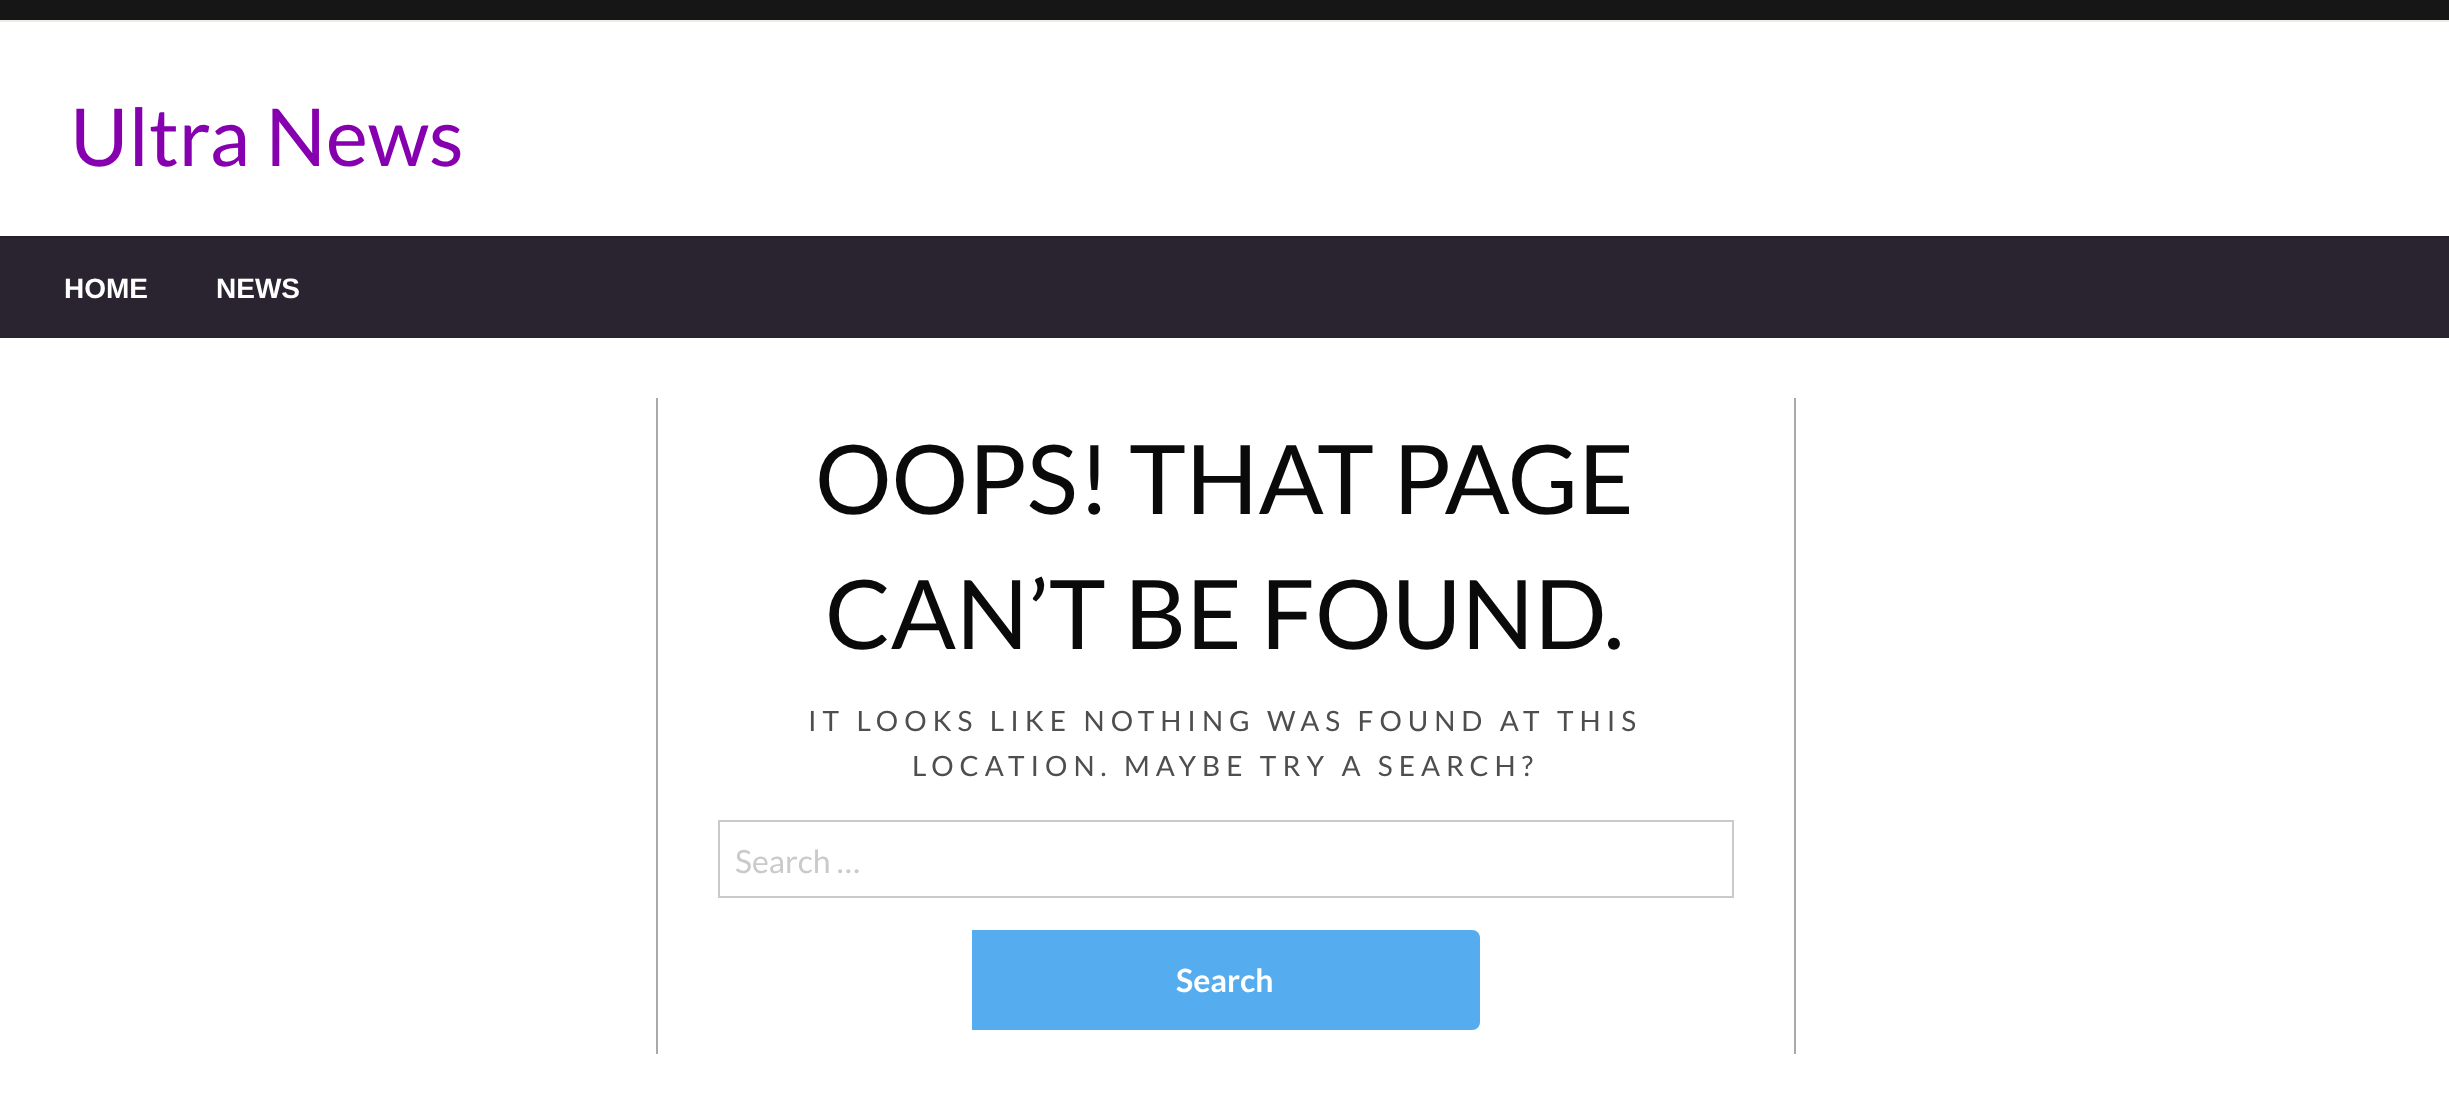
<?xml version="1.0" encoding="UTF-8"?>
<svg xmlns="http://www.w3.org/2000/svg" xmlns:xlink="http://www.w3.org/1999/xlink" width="2449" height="1094">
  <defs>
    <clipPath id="clip1"><rect x="30" y="398" width="2390" height="656" /></clipPath>
  </defs>
  <rect width="100%" height="100%" fill="#161616" />
  <rect y="20" width="2449" height="2" fill="#ecede7" />
  <rect y="22" width="2449" height="214" fill="#ffffff" />
  <rect y="338" width="2449" height="756" fill="#ffffff" />
  <g clip-path="url(#clip1)">
    <rect x="657" y="315" width="1138" height="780" fill="none" stroke="#a9a9a9" stroke-width="2" />
  </g>
  <rect y="238" width="2449" height="100" fill="#292430" />
  <rect y="236" width="2449" height="2" fill="#24202a" />
  <rect x="719" y="821" width="1014" height="76" fill="none" stroke="#cacaca" stroke-width="2" />
  <path d="M 972 930 h 500 c 4.5 0 8 3.5 8 8 v 84 c 0 4.5 -3.5 8 -8 8 h -500 z" fill="#55acee" />
  <text x="70" y="166" style="font-family: Lato; font-size: 80px; fill: #8600af">Ultra News</text>
  <text x="64" y="298" style="font-family: Liberation Sans; font-size: 28px; font-weight: bold; fill: #ffffff">HOME</text>
  <text x="216" y="298" style="font-family: Liberation Sans; font-size: 28px; font-weight: bold; fill: #ffffff">NEWS</text>
  <text x="815" y="514" style="font-family: Lato; font-size: 96px; fill: #0a0a0a">OOPS! THAT PAGE</text>
  <text x="825" y="649" style="font-family: Lato; font-size: 96px; fill: #0a0a0a">CAN’T BE FOUND.</text>
  <text x="808" y="731" style="font-family: Lato; font-size: 28px; letter-spacing: 6px; fill: #504d4d">IT LOOKS LIKE NOTHING WAS FOUND AT THIS</text>
  <text x="912" y="776" style="font-family: Lato; font-size: 28px; letter-spacing: 6px; fill: #504d4d">LOCATION. MAYBE TRY A SEARCH?</text>
  <text x="735" y="873" style="font-family: Lato; font-size: 32px; fill: #cacaca">Search …</text>
  <text x="1176" y="992" style="font-family: Lato; font-size: 32px; font-weight: bold; fill: #ffffff">Search</text>
</svg>
